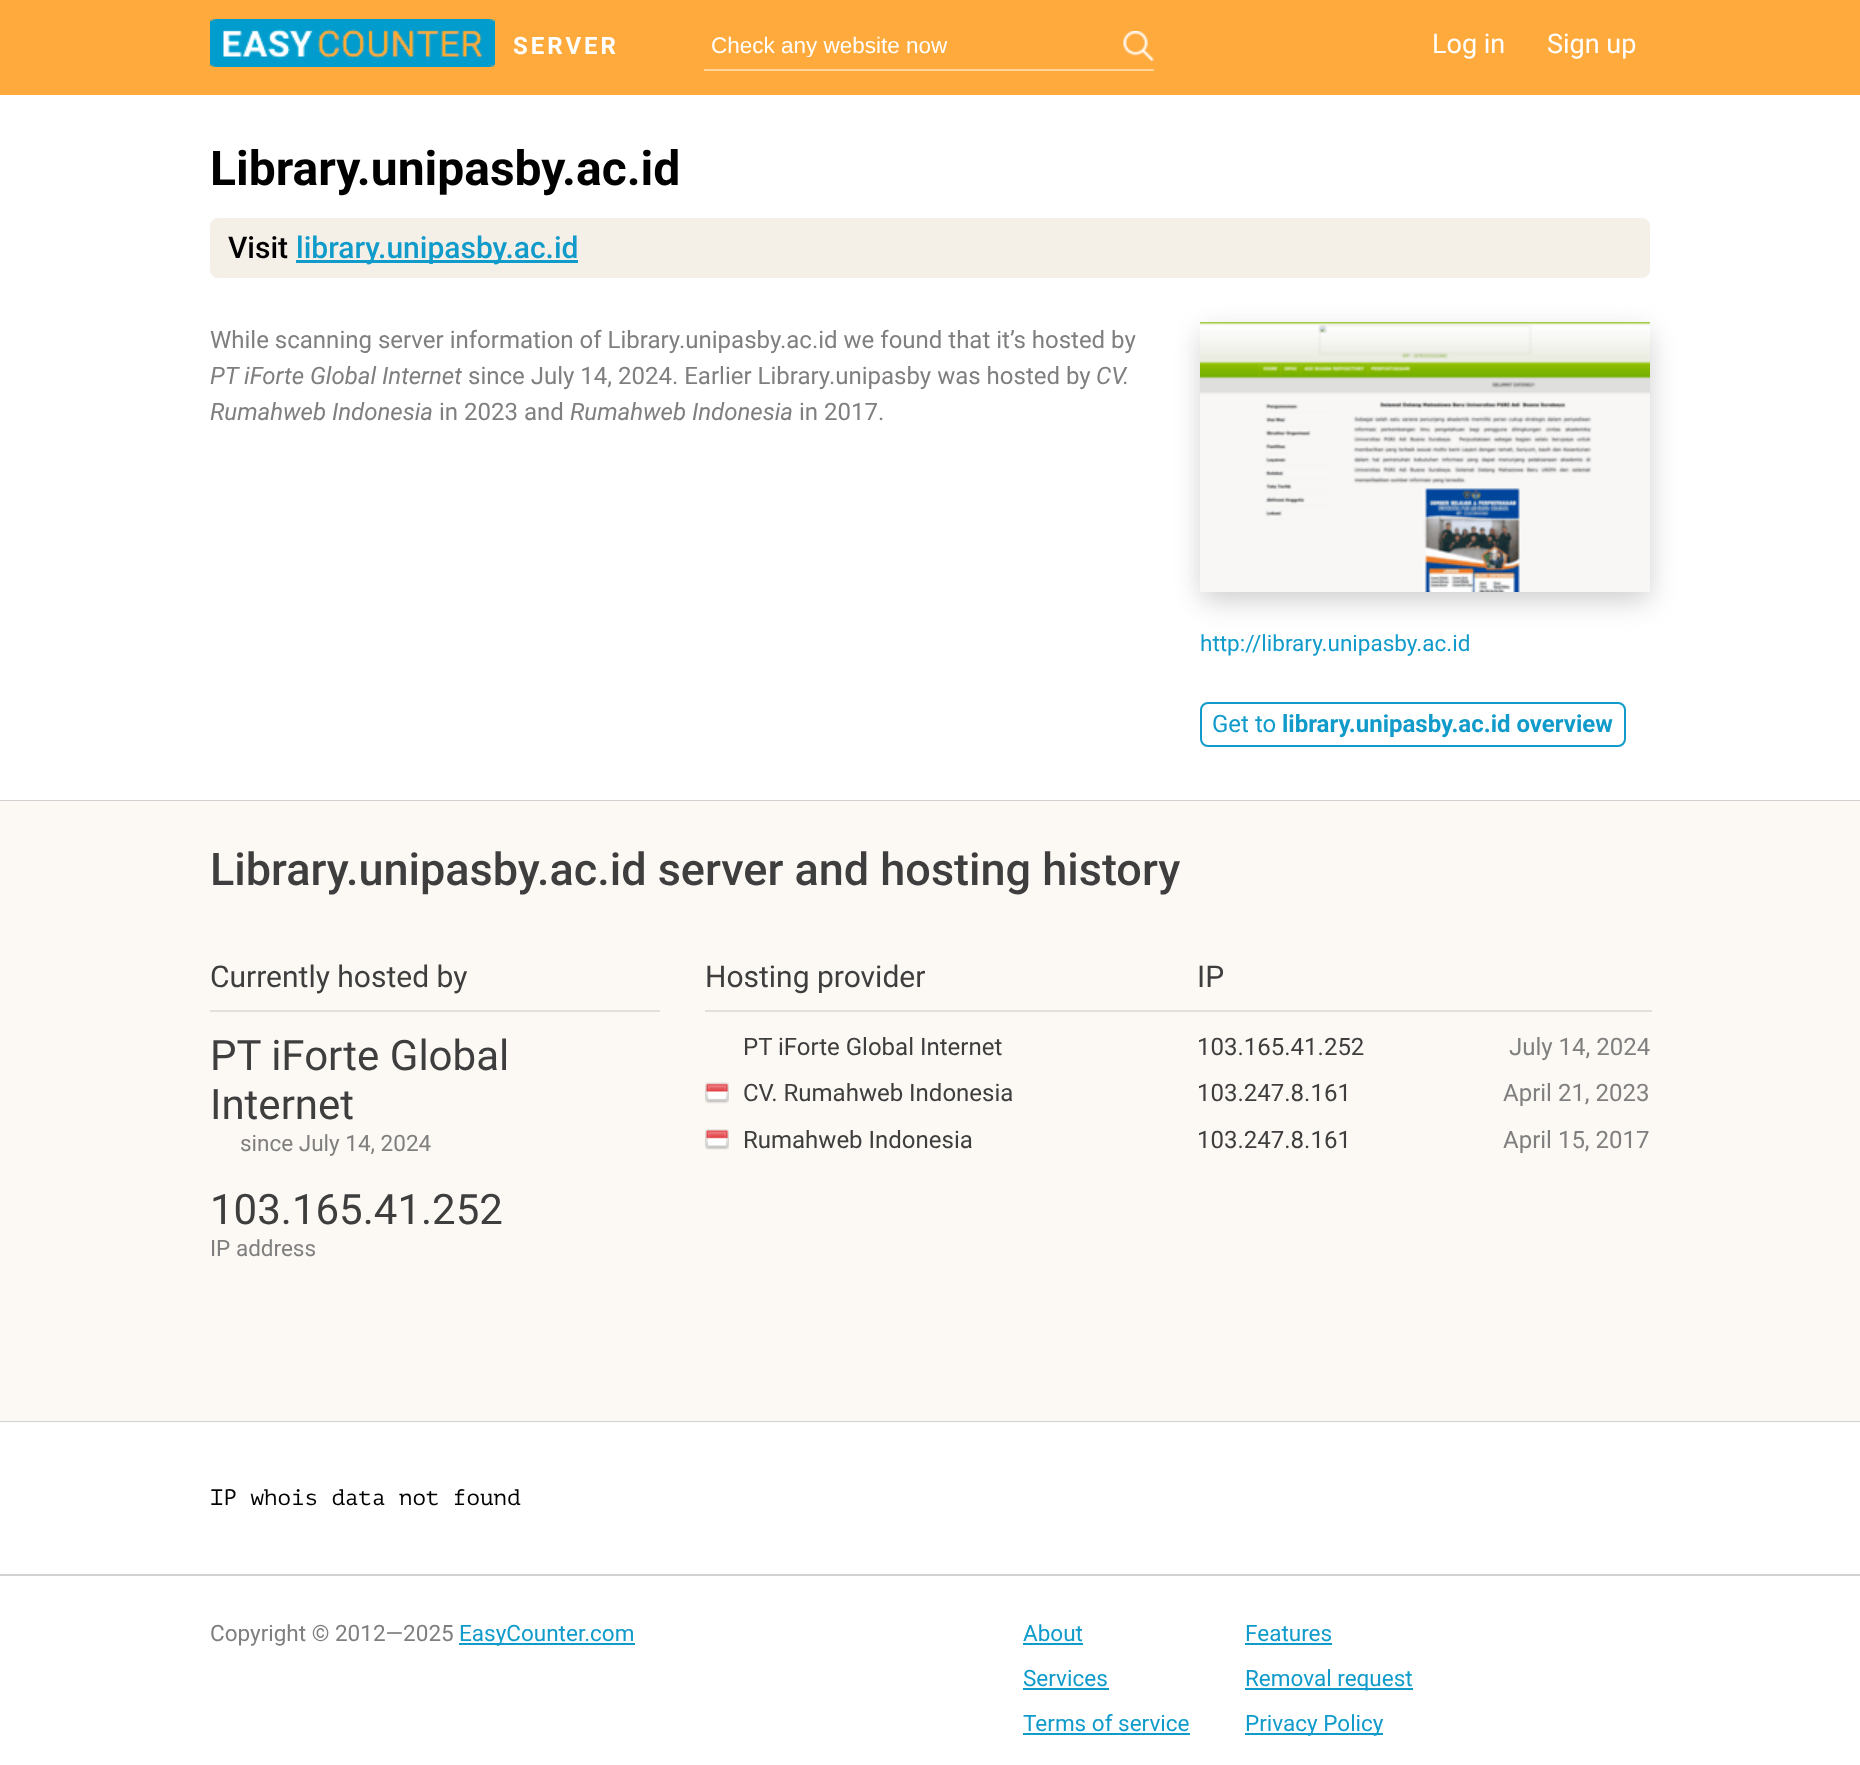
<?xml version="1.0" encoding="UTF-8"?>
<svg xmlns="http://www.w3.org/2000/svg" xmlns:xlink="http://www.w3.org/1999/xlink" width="1860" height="1765">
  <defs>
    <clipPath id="clip1"><rect x="711" y="32" width="407" height="25" /></clipPath>
  </defs>
  <rect width="100%" height="100%" fill="#ffffff" />
  <rect width="1860" height="95" fill="#ffaa3d" />
  <image x="210" y="19" width="285" height="48" xlink:href="image1.png" />
  <rect x="704" y="69" width="450" height="2" fill="#ffd59e" />
  <image x="1123" y="31" width="31" height="30" xlink:href="image2.png" />
  <rect y="800" width="1860" height="1" fill="#d2d2d2" />
  <rect x="210" y="218" width="1440" height="60" rx="8" fill="#f5f0e7" />
  <rect x="296" y="260" width="282" height="3" fill="#109bca" />
  <rect x="1202" y="333" width="447" height="267" fill="#cccccc" filter="blur(14px)" />
  <image x="1200" y="322" width="450" height="270" xlink:href="image3.png" />
  <rect x="1201" y="703" width="424" height="43" rx="7" fill="none" stroke="#109bca" stroke-width="2" />
  <rect y="801" width="1860" height="620" fill="#fcf9f4" />
  <rect y="1421" width="1860" height="1" fill="#d2d2d2" />
  <rect x="210" y="1010" width="450" height="2" fill="#e2e0db" />
  <rect x="705" y="1010" width="947" height="2" fill="#e2e0db" />
  <image x="705" y="1082" width="24" height="22" xlink:href="image4.png" />
  <image x="705" y="1129" width="24" height="21" xlink:href="image5.png" />
  <rect y="1574" width="1860" height="2" fill="#d2d2d2" />
  <rect x="459" y="1643" width="176" height="2" fill="#109bca" />
  <rect x="1023" y="1643" width="60" height="2" fill="#109bca" />
  <rect x="1245" y="1643" width="87" height="2" fill="#109bca" />
  <rect x="1023" y="1688" width="86" height="2" fill="#109bca" />
  <rect x="1245" y="1688" width="168" height="2" fill="#109bca" />
  <rect x="1023" y="1733" width="167" height="2" fill="#109bca" />
  <rect x="1245" y="1733" width="138" height="2" fill="#109bca" />
  <text x="513" y="54" style="font-family: Roboto; font-size: 24px; font-weight: bold; letter-spacing: 3px; fill: #ffffff">SERVER</text>
  <g clip-path="url(#clip1)">
    <text x="711" y="53" style="font-family: Liberation Sans; font-size: 22.5px; fill: #ffffff">Check any website now</text>
  </g>
  <text x="1432" y="53" style="font-family: Roboto; font-size: 27px; fill: #ffffff">Log in</text>
  <text x="1547" y="53" style="font-family: Roboto; font-size: 27px; fill: #ffffff">Sign up</text>
  <text x="210" y="185" style="font-family: Roboto; font-size: 48px; font-weight: bold; fill: #000000">Library.unipasby.ac.id</text>
  <text x="228" y="258" style="font-family: Roboto; font-size: 30px; font-weight: 500; fill: #000000">Visit</text>
  <text x="296" y="258" style="font-family: Roboto; font-size: 30px; font-weight: 500; fill: #109bca">library.unipasby.ac.id</text>
  <text x="210" y="348" style="font-family: Roboto; font-size: 24px; fill: #7f7f7f">While scanning server information of Library.unipasby.ac.id we found that it’s hosted by</text>
  <text x="210" y="384" style="font-family: Roboto; font-size: 24px; font-style: italic; fill: #7f7f7f">PT iForte Global Internet</text>
  <text x="468" y="384" style="font-family: Roboto; font-size: 24px; fill: #7f7f7f">since July 14, 2024. Earlier Library.unipasby was hosted by</text>
  <text x="1096" y="384" style="font-family: Roboto; font-size: 24px; font-style: italic; fill: #7f7f7f">CV.</text>
  <text x="210" y="420" style="font-family: Roboto; font-size: 24px; font-style: italic; fill: #7f7f7f">Rumahweb Indonesia</text>
  <text x="439" y="420" style="font-family: Roboto; font-size: 24px; fill: #7f7f7f">in 2023 and</text>
  <text x="570" y="420" style="font-family: Roboto; font-size: 24px; font-style: italic; fill: #7f7f7f">Rumahweb Indonesia</text>
  <text x="799" y="420" style="font-family: Roboto; font-size: 24px; fill: #7f7f7f">in 2017.</text>
  <text x="1200" y="651" style="font-family: Roboto; font-size: 22.5px; fill: #109bca">http://library.unipasby.ac.id</text>
  <text x="1212" y="732" style="font-family: Roboto; font-size: 24px; fill: #109bca">Get to</text>
  <text x="1282" y="732" style="font-family: Roboto; font-size: 24px; font-weight: bold; fill: #109bca">library.unipasby.ac.id overview</text>
  <text x="210" y="885" style="font-family: Roboto; font-size: 45px; font-weight: 500; fill: #3e3e3e">Library.unipasby.ac.id server and hosting history</text>
  <text x="210" y="987" style="font-family: Roboto; font-size: 30px; fill: #3e3e3e">Currently hosted by</text>
  <text x="210" y="1070" style="font-family: Roboto; font-size: 42px; fill: #3e3e3e">PT iForte Global</text>
  <text x="210" y="1119" style="font-family: Roboto; font-size: 42px; fill: #3e3e3e">Internet</text>
  <text x="240" y="1151" style="font-family: Roboto; font-size: 22.5px; fill: #7f7f7f">since July 14, 2024</text>
  <text x="210" y="1224" style="font-family: Roboto; font-size: 42px; fill: #3e3e3e">103.165.41.252</text>
  <text x="210" y="1256" style="font-family: Roboto; font-size: 22.5px; fill: #7f7f7f">IP address</text>
  <text x="705" y="987" style="font-family: Roboto; font-size: 30px; fill: #3e3e3e">Hosting provider</text>
  <text x="1197" y="987" style="font-family: Roboto; font-size: 30px; fill: #3e3e3e">IP</text>
  <text x="743" y="1055" style="font-family: Roboto; font-size: 24px; fill: #3e3e3e">PT iForte Global Internet</text>
  <text x="1197" y="1055" style="font-family: Roboto; font-size: 24px; fill: #3e3e3e">103.165.41.252</text>
  <text x="1509" y="1055" style="font-family: Roboto; font-size: 24px; fill: #7f7f7f">July 14, 2024</text>
  <text x="743" y="1101" style="font-family: Roboto; font-size: 24px; fill: #3e3e3e">CV. Rumahweb Indonesia</text>
  <text x="1197" y="1101" style="font-family: Roboto; font-size: 24px; fill: #3e3e3e">103.247.8.161</text>
  <text x="1503" y="1101" style="font-family: Roboto; font-size: 24px; fill: #7f7f7f">April 21, 2023</text>
  <text x="743" y="1148" style="font-family: Roboto; font-size: 24px; fill: #3e3e3e">Rumahweb Indonesia</text>
  <text x="1197" y="1148" style="font-family: Roboto; font-size: 24px; fill: #3e3e3e">103.247.8.161</text>
  <text x="1503" y="1148" style="font-family: Roboto; font-size: 24px; fill: #7f7f7f">April 15, 2017</text>
  <text x="210" y="1505" style="font-family: PT Mono; font-size: 22.5px; fill: #000000">IP whois data not found</text>
  <text x="210" y="1641" style="font-family: Roboto; font-size: 22.5px; fill: #7f7f7f">Copyright © 2012—2025</text>
  <text x="459" y="1641" style="font-family: Roboto; font-size: 22.5px; fill: #109bca">EasyCounter.com</text>
  <text x="1023" y="1641" style="font-family: Roboto; font-size: 22.5px; fill: #109bca">About</text>
  <text x="1245" y="1641" style="font-family: Roboto; font-size: 22.5px; fill: #109bca">Features</text>
  <text x="1023" y="1686" style="font-family: Roboto; font-size: 22.5px; fill: #109bca">Services</text>
  <text x="1245" y="1686" style="font-family: Roboto; font-size: 22.5px; fill: #109bca">Removal request</text>
  <text x="1023" y="1731" style="font-family: Roboto; font-size: 22.5px; fill: #109bca">Terms of service</text>
  <text x="1245" y="1731" style="font-family: Roboto; font-size: 22.5px; fill: #109bca">Privacy Policy</text>
</svg>
